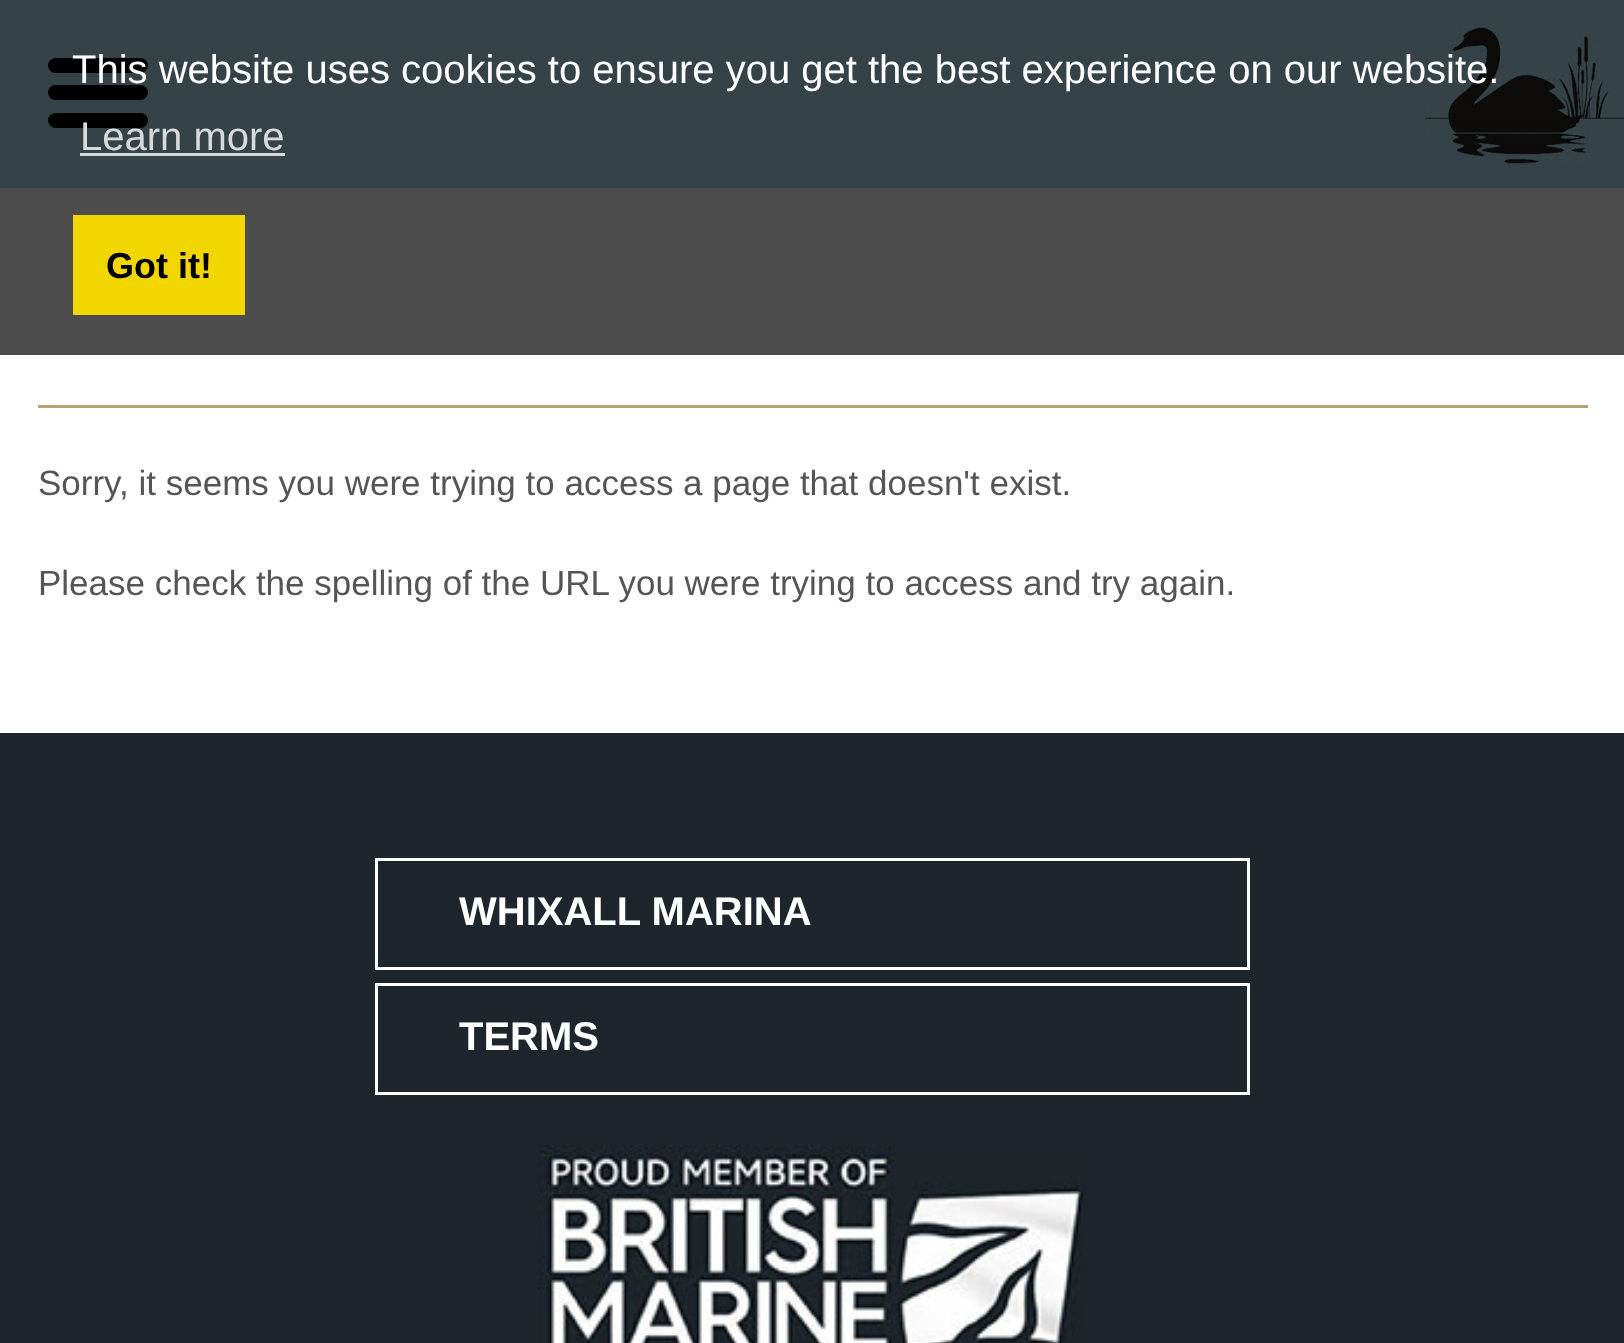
<?xml version="1.0" encoding="UTF-8"?>
<svg xmlns="http://www.w3.org/2000/svg" xmlns:xlink="http://www.w3.org/1999/xlink" width="1624" height="1343">
  <rect width="100%" height="100%" fill="#ffffff" />
  <rect width="1624" height="188" fill="#b3e2f2" />
  <rect x="48" y="58" width="100" height="15" rx="7.5" fill="#000000" />
  <rect x="48" y="85" width="100" height="15" rx="7.5" fill="#000000" />
  <rect x="48" y="113" width="100" height="15" rx="7.5" fill="#000000" />
  <image x="1425" y="25" width="199" height="141" xlink:href="image1.png" />
  <rect width="1624" height="355" fill="#000000" fill-opacity="0.7" />
  <rect x="80" y="153" width="205" height="3" fill="#d7dadb" />
  <rect x="73" y="215" width="172" height="100" fill="#f1d600" />
  <rect x="38" y="405" width="1550" height="3" fill="#b6a36e" />
  <rect y="733" width="1624" height="610" fill="#1e252d" />
  <rect x="376.5" y="859.5" width="872" height="109" fill="none" stroke="#ffffff" stroke-width="3" />
  <rect x="376.5" y="984.5" width="872" height="109" fill="none" stroke="#ffffff" stroke-width="3" />
  <image x="537" y="1145" width="550" height="198" xlink:href="image2.png" />
  <text x="72" y="83" style="font-family: Liberation Sans; font-size: 40px; fill: #ffffff">This website uses cookies to ensure you get the best experience on our website.</text>
  <text x="80" y="150" style="font-family: Liberation Sans; font-size: 40px; fill: #d7d9da">Learn more</text>
  <text x="106" y="278" style="font-family: Liberation Sans; font-size: 36px; font-weight: bold; fill: #000000">Got it!</text>
  <text x="38" y="495" style="font-family: Liberation Sans; font-size: 35px; fill: #555555">Sorry, it seems you were trying to access a page that doesn't exist.</text>
  <text x="38" y="595" style="font-family: Liberation Sans; font-size: 35px; fill: #555555">Please check the spelling of the URL you were trying to access and try again.</text>
  <text x="459" y="925" style="font-family: Liberation Sans; font-size: 40px; font-weight: bold; fill: #ffffff">WHIXALL MARINA</text>
  <text x="459" y="1050" style="font-family: Liberation Sans; font-size: 40px; font-weight: bold; fill: #ffffff">TERMS</text>
</svg>
